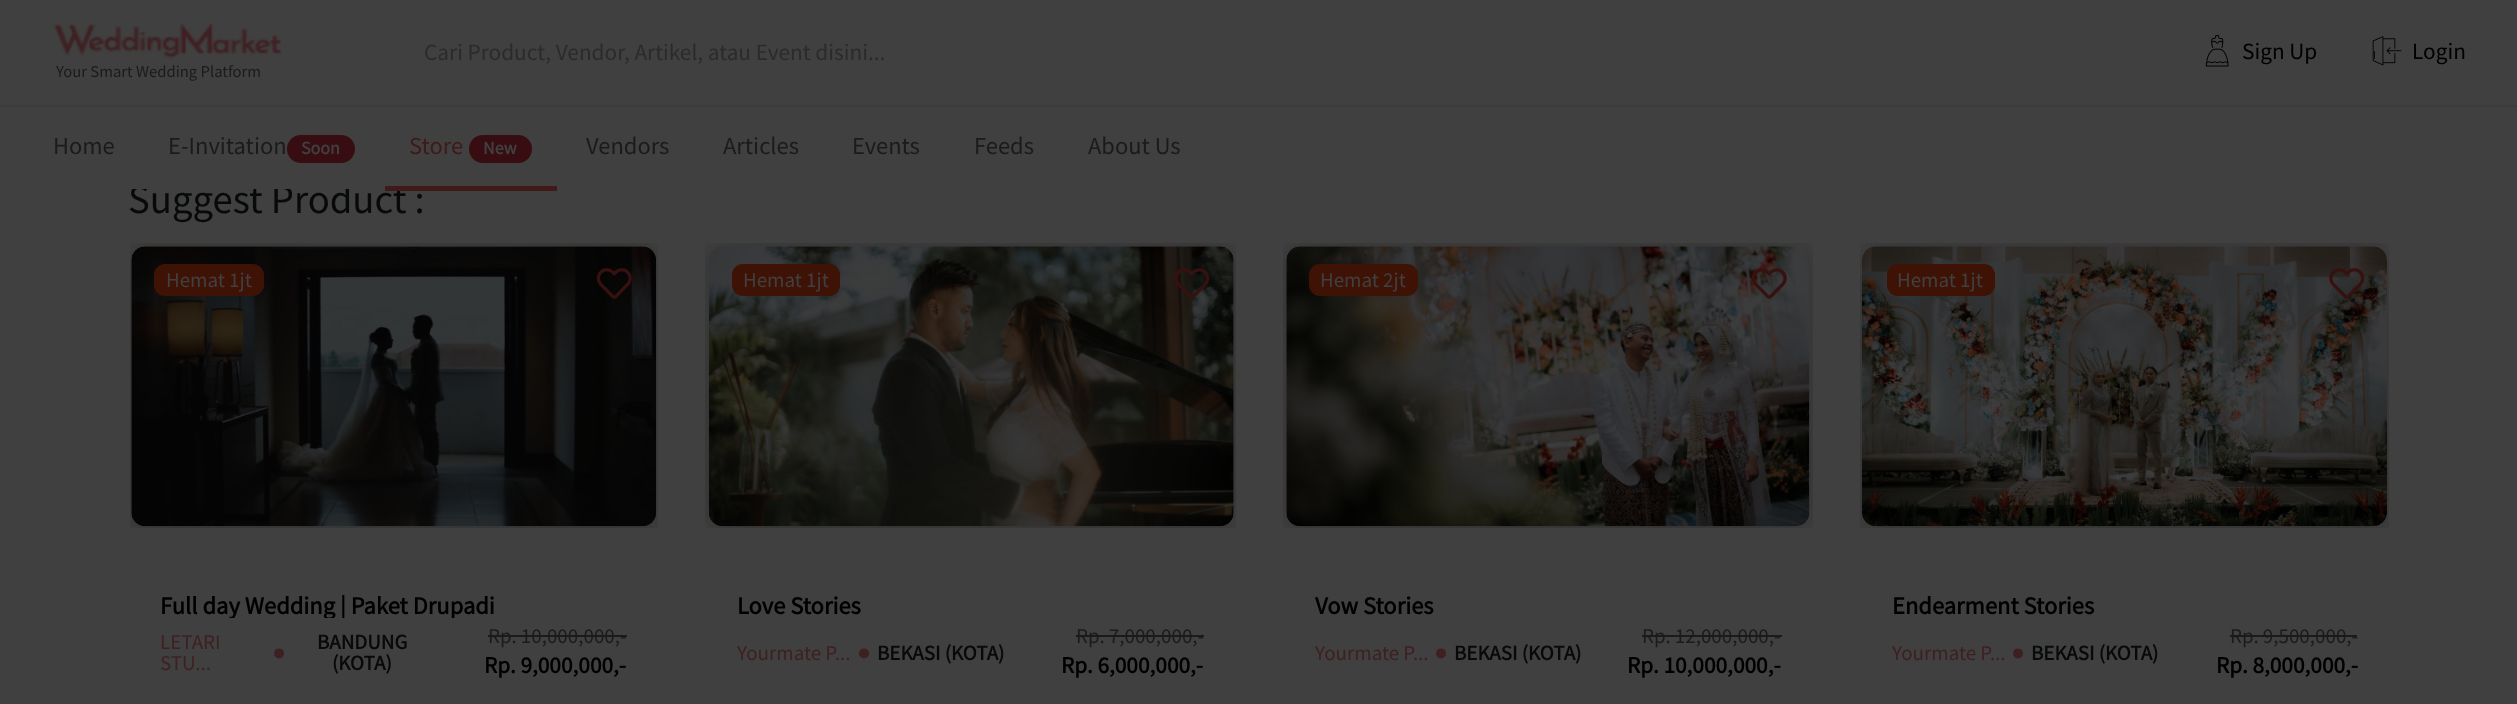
<?xml version="1.0" encoding="UTF-8"?>
<svg xmlns="http://www.w3.org/2000/svg" xmlns:xlink="http://www.w3.org/1999/xlink" width="2517" height="704">
  <defs>
    <clipPath id="clip1"><rect x="161" y="593" width="466" height="25" /></clipPath>
  </defs>
  <rect width="100%" height="100%" fill="#404040" />
  <image x="2205" y="35" width="24" height="32" xlink:href="image1.png" />
  <image x="2372" y="36" width="30" height="30" xlink:href="image2.png" />
  <image x="54" y="22" width="228" height="37" xlink:href="image3.png" />
  <rect y="105" width="2517" height="2" fill="#3c3c3c" />
  <rect x="287" y="135" width="68" height="28" rx="14" fill="#370d11" />
  <rect x="469" y="135" width="63" height="28" rx="14" fill="#370d11" />
  <image x="130" y="243" width="528" height="285" xlink:href="image4.png" />
  <rect x="154" y="264" width="110" height="32" rx="11" fill="#3f1206" />
  <image x="596" y="268" width="36" height="31" xlink:href="image5.png" />
  <rect x="488" y="635" width="139" height="2" fill="#1b1b1b" />
  <image x="705" y="243" width="531" height="285" xlink:href="image6.png" />
  <rect x="732" y="264" width="108" height="32" rx="11" fill="#3f1206" />
  <image x="1174" y="268" width="36" height="31" xlink:href="image7.png" />
  <rect x="1076" y="635" width="128" height="2" fill="#1b1b1b" />
  <image x="1283" y="243" width="530" height="285" xlink:href="image8.png" />
  <rect x="1309" y="264" width="109" height="32" rx="11" fill="#3f1206" />
  <image x="1751" y="268" width="36" height="31" xlink:href="image9.png" />
  <rect x="1642" y="635" width="140" height="2" fill="#1b1b1b" />
  <image x="1860" y="243" width="529" height="285" xlink:href="image10.png" />
  <rect x="1887" y="264" width="108" height="32" rx="11" fill="#3f1206" />
  <image x="2329" y="268" width="36" height="31" xlink:href="image11.png" />
  <rect x="2230" y="635" width="127" height="2" fill="#1b1b1b" />
  <text x="424" y="60" style="font-family: Source Sans Pro; font-size: 23.3px; fill: #2b2b2b">Cari Product, Vendor, Artikel, atau Event disini...</text>
  <text x="2242" y="59" style="font-family: Source Sans Pro; font-size: 23.3px; fill: #000000">Sign Up</text>
  <text x="2412" y="59" style="font-family: Source Sans Pro; font-size: 23.3px; fill: #000000">Login</text>
  <text x="56" y="77" style="font-family: Source Sans Pro; font-size: 16.6px; fill: #1b1b1b">Your Smart Wedding Platform</text>
  <text x="53" y="154" style="font-family: Source Sans Pro; font-size: 24.5px; fill: #1b1b1b">Home</text>
  <text x="168" y="154" style="font-family: Source Sans Pro; font-size: 24.5px; fill: #1b1b1b">E-Invitation</text>
  <text x="301" y="154" style="font-family: Source Sans Pro; font-size: 18px; font-weight: bold; fill: #404040">Soon</text>
  <text x="409" y="154" style="font-family: Source Sans Pro; font-size: 24.5px; fill: #401919">Store</text>
  <text x="483" y="154" style="font-family: Source Sans Pro; font-size: 18px; font-weight: bold; fill: #404040">New</text>
  <text x="586" y="154" style="font-family: Source Sans Pro; font-size: 24.5px; fill: #1b1b1b">Vendors</text>
  <text x="723" y="154" style="font-family: Source Sans Pro; font-size: 24.5px; fill: #1b1b1b">Articles</text>
  <text x="852" y="154" style="font-family: Source Sans Pro; font-size: 24.5px; fill: #1b1b1b">Events</text>
  <text x="974" y="154" style="font-family: Source Sans Pro; font-size: 24.5px; fill: #1b1b1b">Feeds</text>
  <text x="1088" y="154" style="font-family: Source Sans Pro; font-size: 24.5px; fill: #1b1b1b">About Us</text>
  <text x="128" y="213" style="font-family: Source Sans Pro; font-size: 40.75px; fill: #08090a">Suggest Product :</text>
  <rect x="132" y="183" width="269" height="6" fill="#404040" />
  <rect x="385" y="186" width="172" height="5" fill="#401919" />
  <text x="166" y="287" style="font-family: Source Sans Pro; font-size: 21px; fill: #404040">Hemat 1jt</text>
  <g clip-path="url(#clip1)">
    <text x="160" y="614" style="font-family: Source Sans Pro; font-size: 24.5px; font-weight: bold; fill: #000000">Full day Wedding | Paket Drupadi</text>
  </g>
  <text x="160" y="649" style="font-family: Source Sans Pro; font-size: 21px; fill: #3e2022">LETARI</text>
  <text x="160" y="670" style="font-family: Source Sans Pro; font-size: 21px; fill: #3e2022">STU...</text>
  <text x="317" y="649" style="font-family: Source Sans Pro; font-size: 21px; font-weight: bold; fill: #08090a">BANDUNG</text>
  <text x="272" y="660" style="font-family: Liberation Sans; font-size: 23.3px; font-weight: bold; fill: #3e2022">●</text>
  <text x="332" y="670" style="font-family: Source Sans Pro; font-size: 21px; font-weight: bold; fill: #08090a">(KOTA)</text>
  <text x="488" y="643" style="font-family: Source Sans Pro; font-size: 21px; fill: #1b1b1b">Rp. 10,000,000,-</text>
  <text x="484" y="673" style="font-family: Source Sans Pro; font-size: 23.3px; font-weight: bold; fill: #000000">Rp. 9,000,000,-</text>
  <text x="743" y="287" style="font-family: Source Sans Pro; font-size: 21px; fill: #404040">Hemat 1jt</text>
  <text x="737" y="614" style="font-family: Source Sans Pro; font-size: 24.5px; font-weight: bold; fill: #000000">Love Stories</text>
  <text x="737" y="660" style="font-family: Source Sans Pro; font-size: 21px; fill: #3e2022">Yourmate P...</text>
  <text x="857" y="660" style="font-family: Liberation Sans; font-size: 23.3px; font-weight: bold; fill: #3e2022">●</text>
  <text x="877" y="660" style="font-family: Source Sans Pro; font-size: 21px; font-weight: bold; fill: #08090a">BEKASI (KOTA)</text>
  <text x="1076" y="643" style="font-family: Source Sans Pro; font-size: 21px; fill: #1b1b1b">Rp. 7,000,000,-</text>
  <text x="1061" y="673" style="font-family: Source Sans Pro; font-size: 23.3px; font-weight: bold; fill: #000000">Rp. 6,000,000,-</text>
  <text x="1320" y="287" style="font-family: Source Sans Pro; font-size: 21px; fill: #404040">Hemat 2jt</text>
  <text x="1315" y="614" style="font-family: Source Sans Pro; font-size: 24.5px; font-weight: bold; fill: #000000">Vow Stories</text>
  <text x="1315" y="660" style="font-family: Source Sans Pro; font-size: 21px; fill: #3e2022">Yourmate P...</text>
  <text x="1434" y="660" style="font-family: Liberation Sans; font-size: 23.3px; font-weight: bold; fill: #3e2022">●</text>
  <text x="1454" y="660" style="font-family: Source Sans Pro; font-size: 21px; font-weight: bold; fill: #08090a">BEKASI (KOTA)</text>
  <text x="1642" y="643" style="font-family: Source Sans Pro; font-size: 21px; fill: #1b1b1b">Rp. 12,000,000,-</text>
  <text x="1627" y="673" style="font-family: Source Sans Pro; font-size: 23.3px; font-weight: bold; fill: #000000">Rp. 10,000,000,-</text>
  <text x="1897" y="287" style="font-family: Source Sans Pro; font-size: 21px; fill: #404040">Hemat 1jt</text>
  <text x="1892" y="614" style="font-family: Source Sans Pro; font-size: 24.5px; font-weight: bold; fill: #000000">Endearment Stories</text>
  <text x="1892" y="660" style="font-family: Source Sans Pro; font-size: 21px; fill: #3e2022">Yourmate P...</text>
  <text x="2011" y="660" style="font-family: Liberation Sans; font-size: 23.3px; font-weight: bold; fill: #3e2022">●</text>
  <text x="2031" y="660" style="font-family: Source Sans Pro; font-size: 21px; font-weight: bold; fill: #08090a">BEKASI (KOTA)</text>
  <text x="2230" y="643" style="font-family: Source Sans Pro; font-size: 21px; fill: #1b1b1b">Rp. 9,500,000,-</text>
  <text x="2216" y="673" style="font-family: Source Sans Pro; font-size: 23.3px; font-weight: bold; fill: #000000">Rp. 8,000,000,-</text>
</svg>
